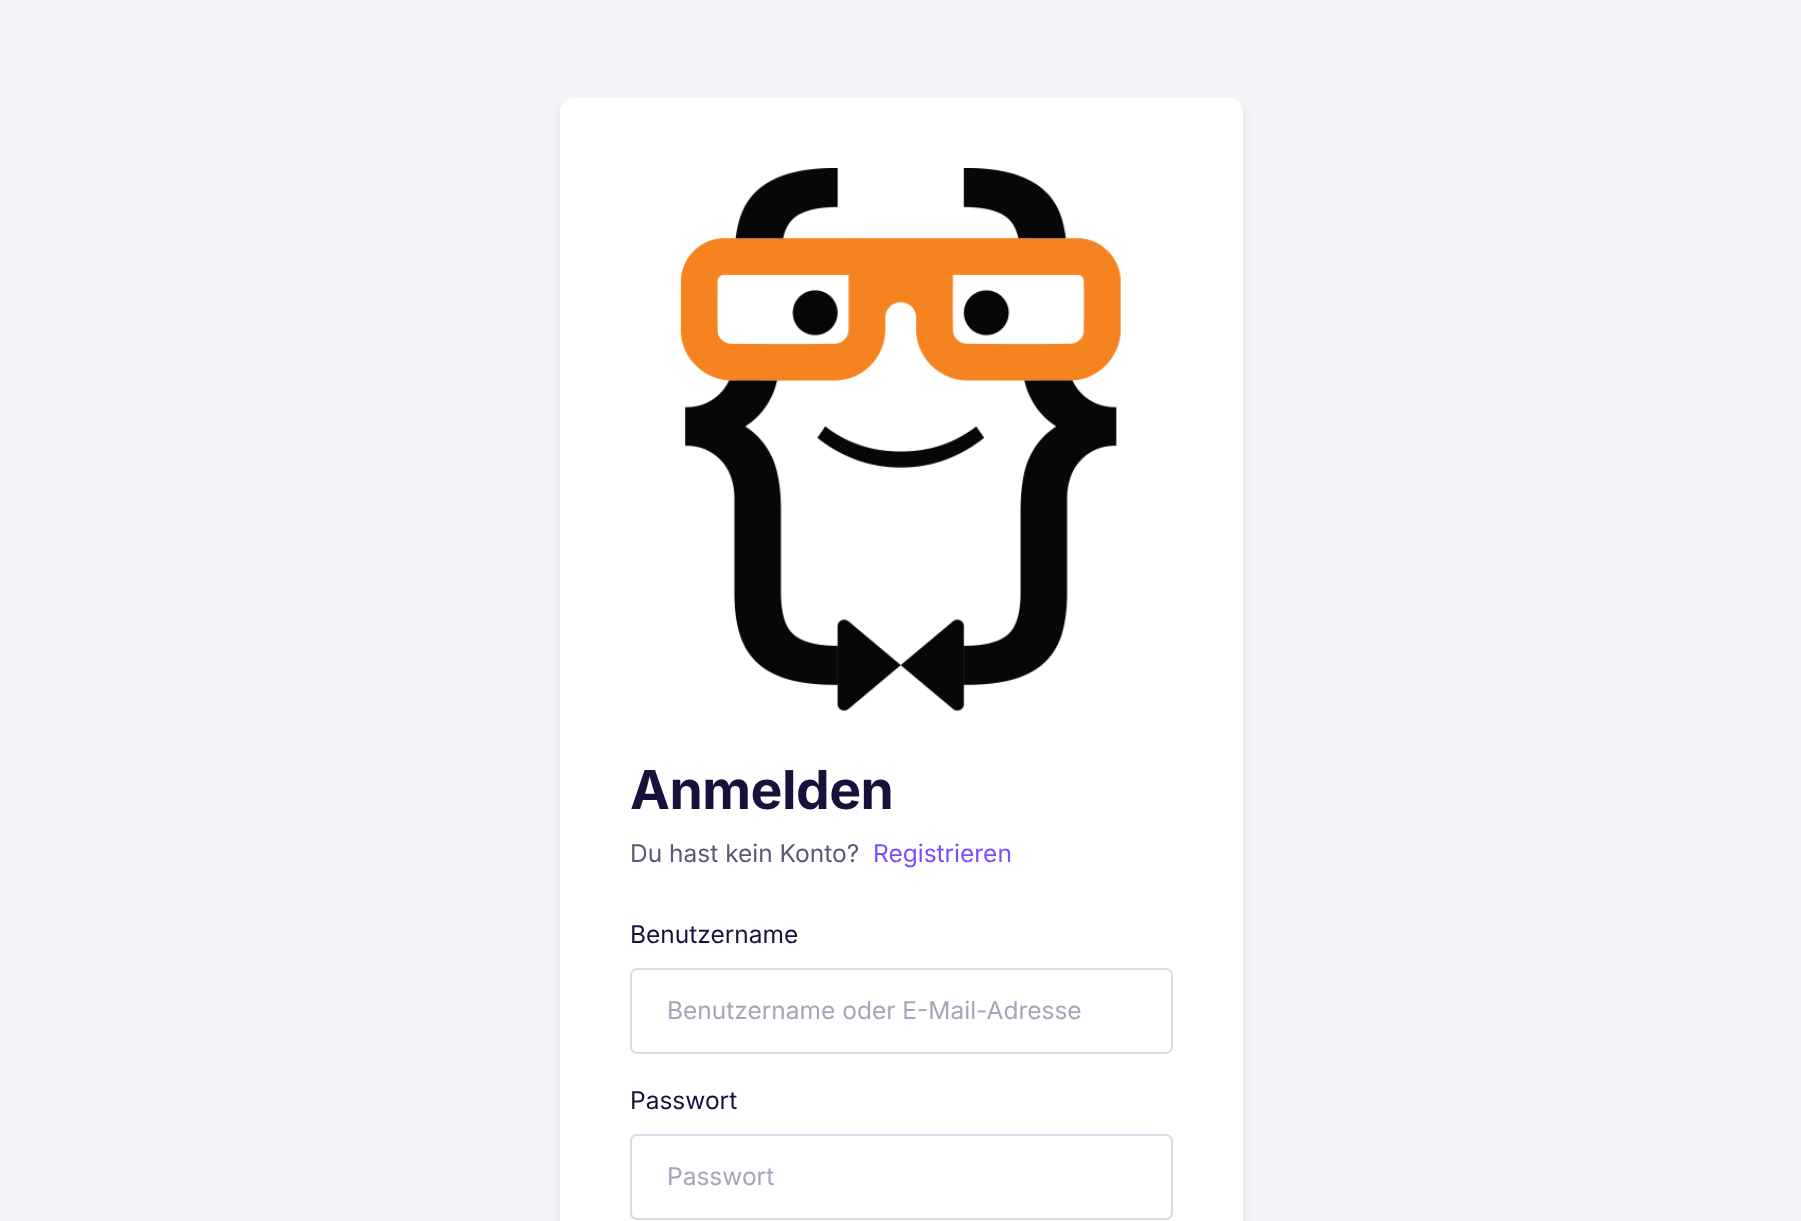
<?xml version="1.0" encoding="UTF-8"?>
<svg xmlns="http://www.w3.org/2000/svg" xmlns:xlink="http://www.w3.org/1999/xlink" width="1801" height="1221">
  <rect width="100%" height="100%" fill="#f5f4f8" />
  <rect x="560" y="103" width="683" height="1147" rx="14" fill="#030047" fill-opacity="0.1" filter="blur(5px)" />
  <rect x="560" y="98" width="683" height="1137" rx="14" fill="#ffffff" />
  <image x="680" y="168" width="441" height="543" xlink:href="image1.png" />
  <rect x="631" y="969" width="541" height="84" rx="6" fill="none" stroke="#dbd8e9" stroke-width="2" />
  <rect x="631" y="1135" width="541" height="84" rx="6" fill="none" stroke="#dbd8e9" stroke-width="2" />
  <text x="630" y="809" style="font-family: Inter; font-size: 53.5px; font-weight: bold; letter-spacing: -0.5px; fill: #18113c">Anmelden</text>
  <text x="630" y="862" style="font-family: Inter; font-size: 24.5px; fill: #5c5776">Du hast kein Konto?</text>
  <text x="873" y="862" style="font-family: Inter; font-size: 24.5px; fill: #754ffe">Registrieren</text>
  <text x="630" y="943" style="font-family: Inter; font-size: 24.5px; fill: #18113c">Benutzername</text>
  <text x="667" y="1019" style="font-family: Inter; font-size: 24.5px; fill: #a8a3b9">Benutzername oder E-Mail-Adresse</text>
  <text x="630" y="1109" style="font-family: Inter; font-size: 24.5px; fill: #18113c">Passwort</text>
  <text x="667" y="1185" style="font-family: Inter; font-size: 24.5px; fill: #a8a3b9">Passwort</text>
</svg>
